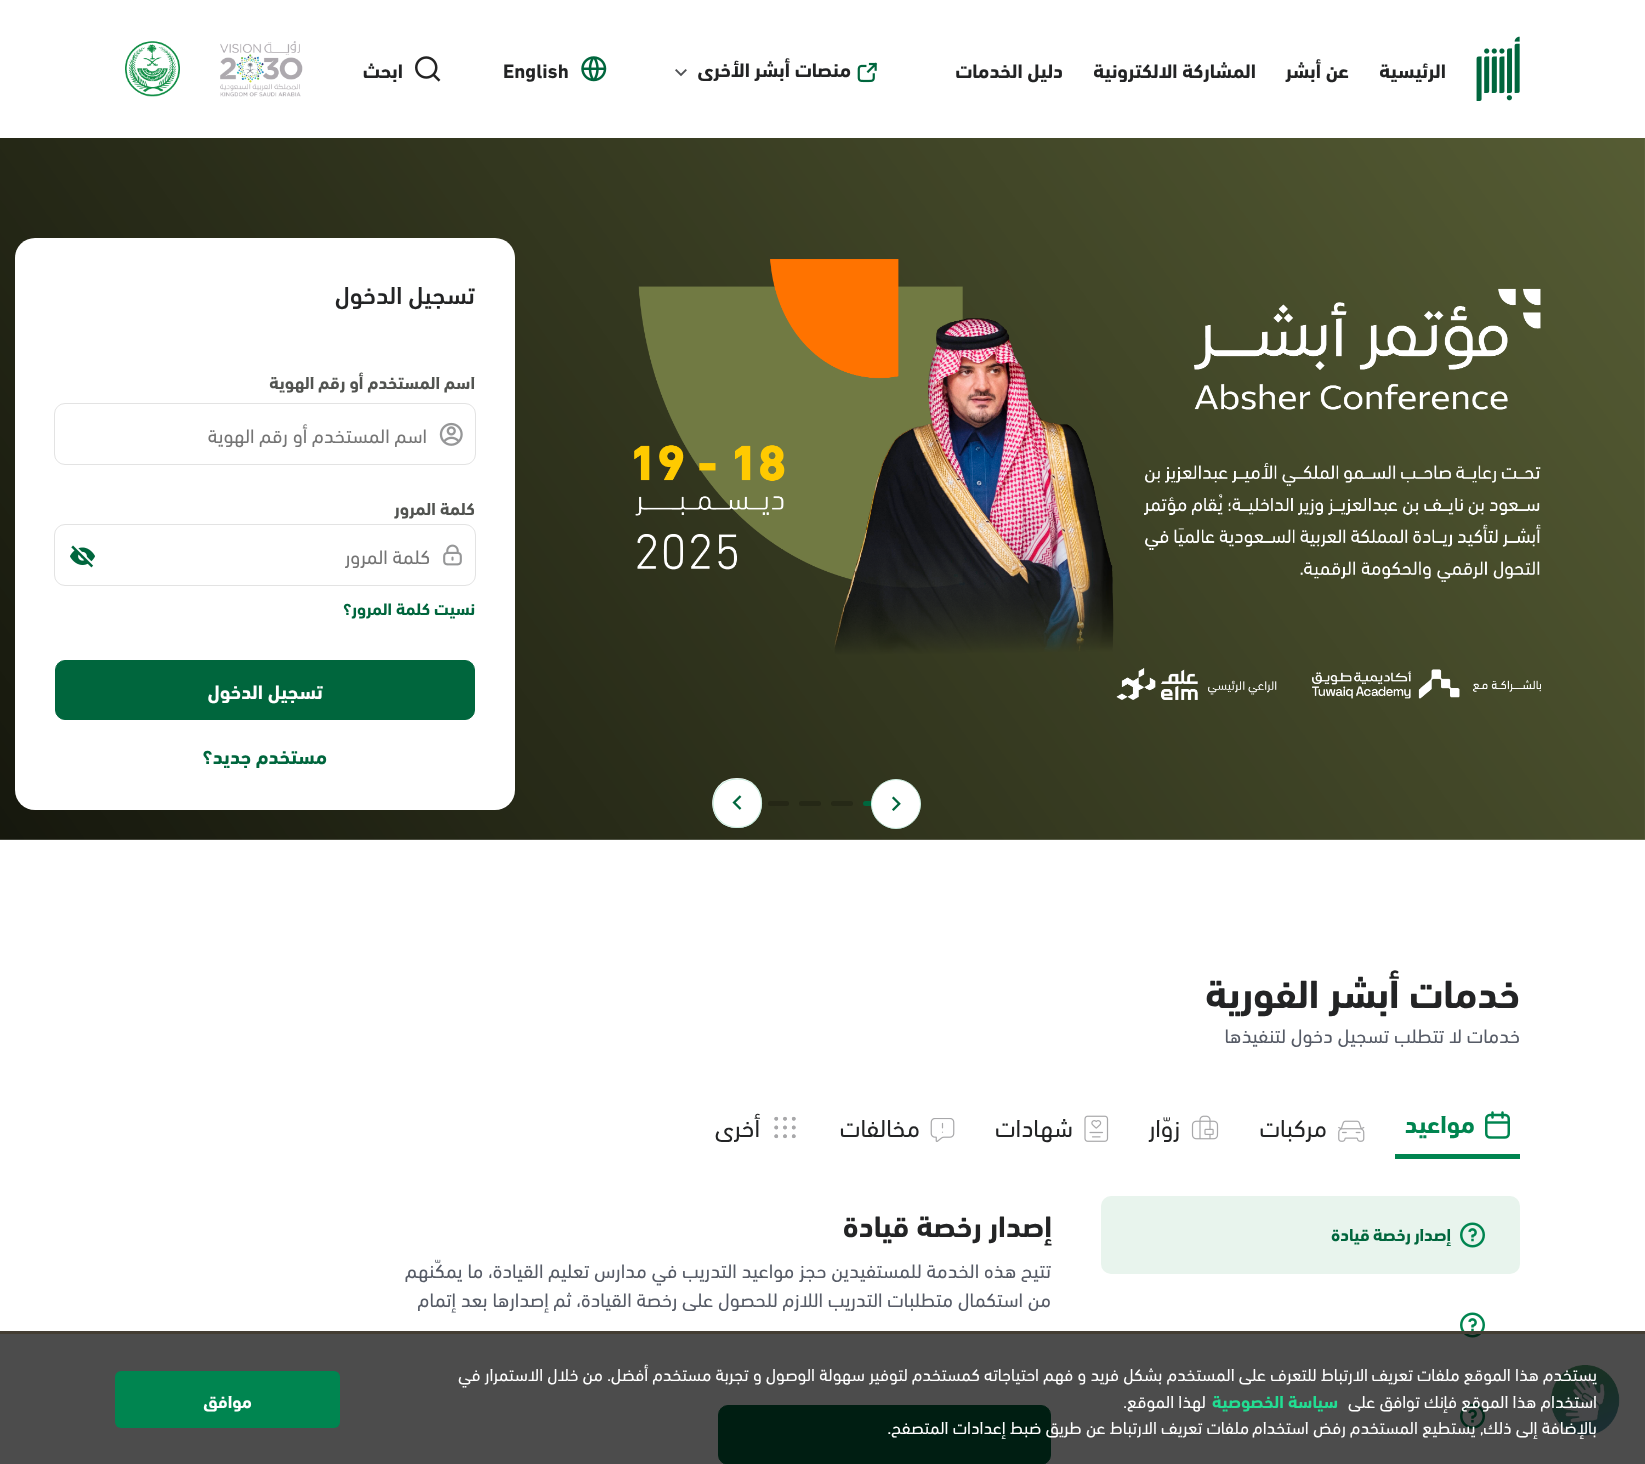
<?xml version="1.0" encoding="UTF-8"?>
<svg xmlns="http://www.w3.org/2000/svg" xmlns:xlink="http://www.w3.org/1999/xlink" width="1645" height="1464">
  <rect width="100%" height="100%" fill="#ffffff" />
  <image x="1476" y="36" width="44" height="65" xlink:href="image1.png" />
  <image x="857" y="62" width="21" height="21" xlink:href="image2.png" />
  <image x="675" y="69" width="12" height="8" xlink:href="image3.png" />
  <image x="581" y="56" width="26" height="26" xlink:href="image4.png" />
  <image x="415" y="56" width="26" height="26" xlink:href="image5.png" />
  <image x="125" y="41" width="178" height="56" xlink:href="image6.png" />
  <image x="0" y="138" width="1645" height="702" xlink:href="image7.png" />
  <rect x="863" y="801" width="22" height="5" rx="2.5" fill="#00663d" />
  <circle cx="896" cy="804" r="24.5" fill="#ffffff" stroke="#cceee0" />
  <image x="892" y="796" width="9" height="15" xlink:href="image8.png" />
  <rect x="831" y="801" width="22" height="5" rx="2.5" fill="#262917" />
  <rect x="799" y="801" width="22" height="5" rx="2.5" fill="#252816" />
  <rect x="768" y="801" width="21" height="5" rx="2.5" fill="#252716" />
  <path d="M 737 828 c -33 0 -33 -50 0 -50 c 33 0 33 50 0 50 z" fill="#ffffff" />
  <path d="M 737.5 827.5 c -32.5 0 -32.5 -48.5 0 -48.5 c 32 0 32 48.5 0 48.5 z" fill="none" stroke="#cceee0" stroke-width="1.2" />
  <image x="732" y="795" width="10" height="15" xlink:href="image9.png" />
  <rect x="15" y="238" width="500" height="572" rx="20" fill="#ffffff" />
  <rect x="54.5" y="403.5" width="421" height="61" rx="10.5" fill="none" stroke="#e3e3e3" />
  <image x="439" y="422" width="24" height="24" xlink:href="image10.png" />
  <rect x="54.5" y="524.5" width="421" height="61" rx="10.5" fill="none" stroke="#e3e3e3" />
  <image x="443" y="544" width="19" height="22" xlink:href="image11.png" />
  <image x="70" y="545" width="25" height="23" xlink:href="image12.png" />
  <rect x="55.5" y="660.5" width="419" height="59" rx="9.5" fill="#00663d" stroke="#00663d" />
  <rect x="1395" y="1154" width="125" height="5" fill="#008550" />
  <image x="1485" y="1111" width="25" height="28" xlink:href="image13.png" />
  <image x="1338" y="1120" width="27" height="22" xlink:href="image14.png" />
  <image x="1191" y="1115" width="28" height="25" xlink:href="image15.png" />
  <image x="1084" y="1115" width="25" height="27" xlink:href="image16.png" />
  <image x="930" y="1118" width="25" height="24" xlink:href="image17.png" />
  <image x="774" y="1116" width="22" height="23" xlink:href="image18.png" />
  <rect x="1101" y="1196" width="419" height="78" rx="10" fill="#e8f4ed" />
  <image x="1460" y="1222" width="25" height="26" xlink:href="image19.png" />
  <image x="1460" y="1312" width="25" height="26" xlink:href="image20.png" />
  <image x="1460" y="1403" width="25" height="26" xlink:href="image21.png" />
  <rect x="718.5" y="1405.5" width="332" height="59" rx="9.5" fill="#00663d" stroke="#00663d" />
  <image x="1550" y="1365" width="70" height="71" xlink:href="image22.png" />
  <rect y="1334" width="1645" height="130" fill="#000000" fill-opacity="0.7" />
  <rect y="1331" width="1645" height="3" fill="#433d33" />
  <rect x="115" y="1371" width="225" height="57" rx="6" fill="#008550" />
  <text x="1446" y="78" style="font-family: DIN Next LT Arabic; font-size: 20px; font-weight: bold; direction: rtl; fill: #232425">الرئيسية</text>
  <text x="1349" y="78" style="font-family: DIN Next LT Arabic; font-size: 20px; font-weight: bold; direction: rtl; fill: #232425">عن أبشر</text>
  <text x="1256" y="78" style="font-family: DIN Next LT Arabic; font-size: 20px; font-weight: bold; direction: rtl; fill: #232425">المشاركة الالكترونية</text>
  <text x="1063" y="78" style="font-family: DIN Next LT Arabic; font-size: 20px; font-weight: bold; direction: rtl; fill: #232425">دليل الخدمات</text>
  <text x="851" y="77" style="font-family: DIN Next LT Arabic; font-size: 20px; font-weight: bold; direction: rtl; fill: #232425">منصات أبشر الأخرى</text>
  <text x="503" y="78" style="font-family: DIN Next LT Arabic; font-size: 20px; font-weight: bold; fill: #232425">English</text>
  <text x="403" y="78" style="font-family: DIN Next LT Arabic; font-size: 20px; font-weight: bold; direction: rtl; fill: #232425">ابحث</text>
  <text x="475" y="304" style="font-family: DIN Next LT Arabic; font-size: 25px; font-weight: 500; direction: rtl; fill: #232425">تسجيل الدخول</text>
  <text x="475" y="389" style="font-family: DIN Next LT Arabic; font-size: 17.5px; font-weight: bold; direction: rtl; fill: #525451">اسم المستخدم أو رقم الهوية</text>
  <text x="427" y="443" style="font-family: DIN Next LT Arabic; font-size: 20px; direction: rtl; fill: #757575">اسم المستخدم أو رقم الهوية</text>
  <text x="475" y="515" style="font-family: DIN Next LT Arabic; font-size: 17.5px; font-weight: bold; direction: rtl; fill: #525451">كلمة المرور</text>
  <text x="430" y="564" style="font-family: DIN Next LT Arabic; font-size: 20px; direction: rtl; fill: #757575">كلمة المرور</text>
  <text x="475" y="615" style="font-family: DIN Next LT Arabic; font-size: 17px; font-weight: bold; direction: rtl; fill: #00663d">نسيت كلمة المرور؟</text>
  <text x="323" y="699" style="font-family: DIN Next LT Arabic; font-size: 20px; font-weight: bold; direction: rtl; fill: #ffffff">تسجيل الدخول</text>
  <text x="327" y="764" style="font-family: DIN Next LT Arabic; font-size: 20px; font-weight: bold; direction: rtl; fill: #00663d">مستخدم جديد؟</text>
  <text x="1520" y="1008" style="font-family: DIN Next LT Arabic; font-size: 40px; font-weight: bold; direction: rtl; fill: #232425">خدمات أبشر الفورية</text>
  <text x="1520" y="1043" style="font-family: DIN Next LT Arabic; font-size: 20px; direction: rtl; fill: #565b66">خدمات لا تتطلب تسجيل دخول لتنفيذها</text>
  <text x="1475" y="1133" style="font-family: DIN Next LT Arabic; font-size: 25px; font-weight: bold; direction: rtl; fill: #008550">مواعيد</text>
  <text x="1327" y="1137" style="font-family: DIN Next LT Arabic; font-size: 25px; direction: rtl; fill: #232425">مركبات</text>
  <text x="1180" y="1137" style="font-family: DIN Next LT Arabic; font-size: 25px; direction: rtl; fill: #232425">زوّار</text>
  <text x="1073" y="1137" style="font-family: DIN Next LT Arabic; font-size: 25px; direction: rtl; fill: #232425">شهادات</text>
  <text x="920" y="1137" style="font-family: DIN Next LT Arabic; font-size: 25px; direction: rtl; fill: #232425">مخالفات</text>
  <text x="760" y="1137" style="font-family: DIN Next LT Arabic; font-size: 25px; direction: rtl; fill: #232425">أخرى</text>
  <text x="1451" y="1241" word-spacing="-1" style="font-family: DIN Next LT Arabic; font-size: 17.5px; font-weight: bold; letter-spacing: 0.3px; direction: rtl; fill: #00663d">إصدار رخصة قيادة</text>
  <text x="1052" y="1237" style="font-family: DIN Next LT Arabic; font-size: 30px; font-weight: bold; direction: rtl; fill: #232425">إصدار رخصة قيادة</text>
  <text x="1051" y="1278" style="font-family: DIN Next LT Arabic; font-size: 20px; direction: rtl; fill: #565b66">تتيح هذه الخدمة للمستفيدين حجز مواعيد التدريب في مدارس تعليم القيادة، ما يمكّنهم</text>
  <text x="1051" y="1307" style="font-family: DIN Next LT Arabic; font-size: 20px; direction: rtl; fill: #565b66">من استكمال متطلبات التدريب اللازم للحصول على رخصة القيادة، ثم إصدارها بعد إتمام</text>
  <text x="1597" y="1381" style="font-family: DIN Next LT Arabic; font-size: 17.5px; direction: rtl; fill: #ffffff">يستخدم هذا الموقع ملفات تعريف</text>
  <text x="1368" y="1381" style="font-family: DIN Next LT Arabic; font-size: 17.5px; direction: rtl; fill: #ffffff">الارتباط للتعرف على المستخدم بشكل فريد و فهم احتياجاته كمستخدم</text>
  <text x="908" y="1381" style="font-family: DIN Next LT Arabic; font-size: 17.5px; direction: rtl; fill: #ffffff">لتوفير سهولة الوصول و تجربة مستخدم أفضل. من خلال الاستمرار في</text>
  <text x="1597" y="1408" style="font-family: DIN Next LT Arabic; font-size: 17.5px; direction: rtl; fill: #ffffff">استخدام هذا الموقع فإنك توافق على</text>
  <text x="1338" y="1408" style="font-family: DIN Next LT Arabic; font-size: 17.5px; font-weight: bold; direction: rtl; fill: #22dd92">سياسة الخصوصية</text>
  <text x="1206" y="1408" style="font-family: DIN Next LT Arabic; font-size: 17.5px; direction: rtl; fill: #ffffff">لهذا الموقع.</text>
  <text x="1597" y="1434" style="font-family: DIN Next LT Arabic; font-size: 17.5px; direction: rtl; fill: #ffffff">بالإضافة إلى ذلك, يستطيع المستخدم رفض استخدام</text>
  <text x="1249" y="1434" style="font-family: DIN Next LT Arabic; font-size: 17.5px; direction: rtl; fill: #ffffff">ملفات تعريف الارتباط عن طريق ضبط إعدادات المتصفح.</text>
  <text x="252" y="1408" style="font-family: DIN Next LT Arabic; font-size: 17.5px; font-weight: bold; direction: rtl; fill: #ffffff">موافق</text>
</svg>
